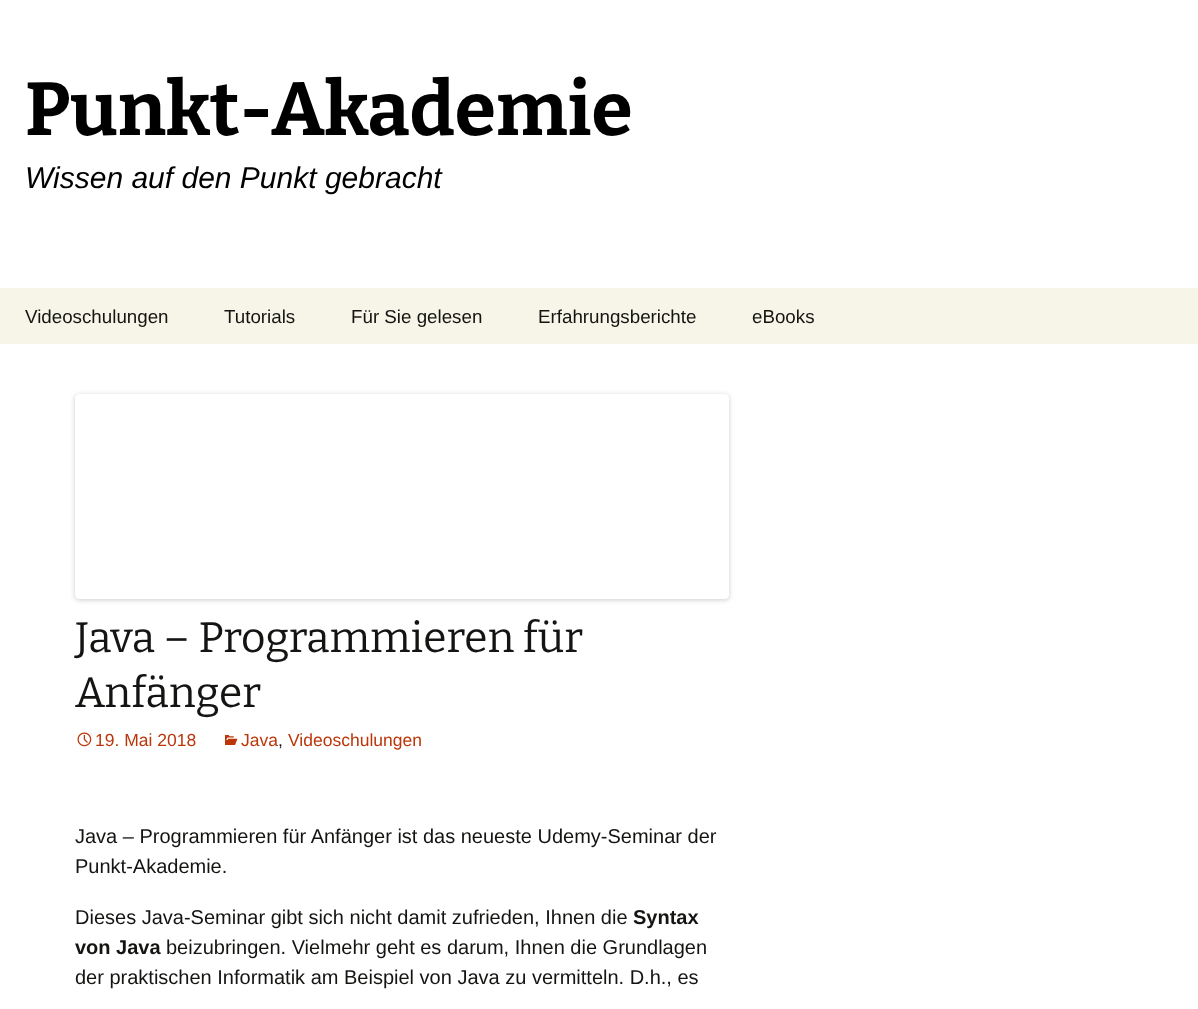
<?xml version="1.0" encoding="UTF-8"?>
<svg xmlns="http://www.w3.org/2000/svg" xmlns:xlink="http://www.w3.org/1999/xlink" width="1198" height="1009">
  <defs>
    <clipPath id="clip1"><path d="M 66 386 h 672 v 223 h -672 z m 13 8 h 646 c 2 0 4 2 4 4 v 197 c 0 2 -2 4 -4 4 h -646 c -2 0 -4 -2 -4 -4 v -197 c 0 -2 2 -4 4 -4 z" clip-rule="evenodd" /></clipPath>
  </defs>
  <rect width="100%" height="100%" fill="#ffffff" />
  <rect y="288" width="1198" height="56" fill="#f7f5e7" />
  <g clip-path="url(#clip1)">
    <rect x="75" y="395" width="654" height="205" rx="4" fill="#000000" fill-opacity="0.2" filter="blur(2.5px)" />
  </g>
  <image x="77" y="732" width="15" height="15" xlink:href="image1.png" />
  <image x="225" y="735" width="13" height="10" xlink:href="image2.png" />
  <text x="25" y="135" style="font-family: Bitter; font-size: 75px; font-weight: bold; fill: #000000">Punkt-Akademie</text>
  <text x="25" y="188" style="font-family: Liberation Sans; font-size: 30px; font-style: italic; fill: #000000">Wissen auf den Punkt gebracht</text>
  <text x="25" y="323" style="font-family: Liberation Sans; font-size: 18.75px; fill: #141412">Videoschulungen</text>
  <text x="224" y="323" style="font-family: Liberation Sans; font-size: 18.75px; fill: #141412">Tutorials</text>
  <text x="351" y="323" style="font-family: Liberation Sans; font-size: 18.75px; fill: #141412">Für Sie gelesen</text>
  <text x="538" y="323" style="font-family: Liberation Sans; font-size: 18.75px; fill: #141412">Erfahrungsberichte</text>
  <text x="752" y="323" style="font-family: Liberation Sans; font-size: 18.75px; fill: #141412">eBooks</text>
  <text x="75" y="652" style="font-family: Bitter; font-size: 42.5px; fill: #141412">Java – Programmieren für</text>
  <text x="75" y="707" style="font-family: Bitter; font-size: 42.5px; fill: #141412">Anfänger</text>
  <text x="95" y="746" style="font-family: Liberation Sans; font-size: 17.5px; fill: #bc360a">19. Mai 2018</text>
  <text x="241" y="746" style="font-family: Liberation Sans; font-size: 17.5px; fill: #bc360a">Java</text>
  <text x="278" y="746" style="font-family: Liberation Sans; font-size: 17.5px; fill: #141412">,</text>
  <text x="288" y="746" style="font-family: Liberation Sans; font-size: 17.5px; fill: #bc360a">Videoschulungen</text>
  <text x="75" y="843" style="font-family: Liberation Sans; font-size: 20px; fill: #141412">Java – Programmieren für Anfänger ist das neueste Udemy-Seminar der</text>
  <text x="75" y="873" style="font-family: Liberation Sans; font-size: 20px; fill: #141412">Punkt-Akademie.</text>
  <text x="75" y="924" style="font-family: Liberation Sans; font-size: 20px; fill: #141412">Dieses Java-Seminar gibt sich nicht damit zufrieden, Ihnen die</text>
  <text x="633" y="924" style="font-family: Liberation Sans; font-size: 20px; font-weight: bold; fill: #141412">Syntax</text>
  <text x="75" y="954" style="font-family: Liberation Sans; font-size: 20px; font-weight: bold; fill: #141412">von Java</text>
  <text x="166" y="954" style="font-family: Liberation Sans; font-size: 20px; fill: #141412">beizubringen. Vielmehr geht es darum, Ihnen die Grundlagen</text>
  <text x="75" y="984" style="font-family: Liberation Sans; font-size: 20px; fill: #141412">der praktischen Informatik am Beispiel von Java zu vermitteln. D.h., es</text>
</svg>
